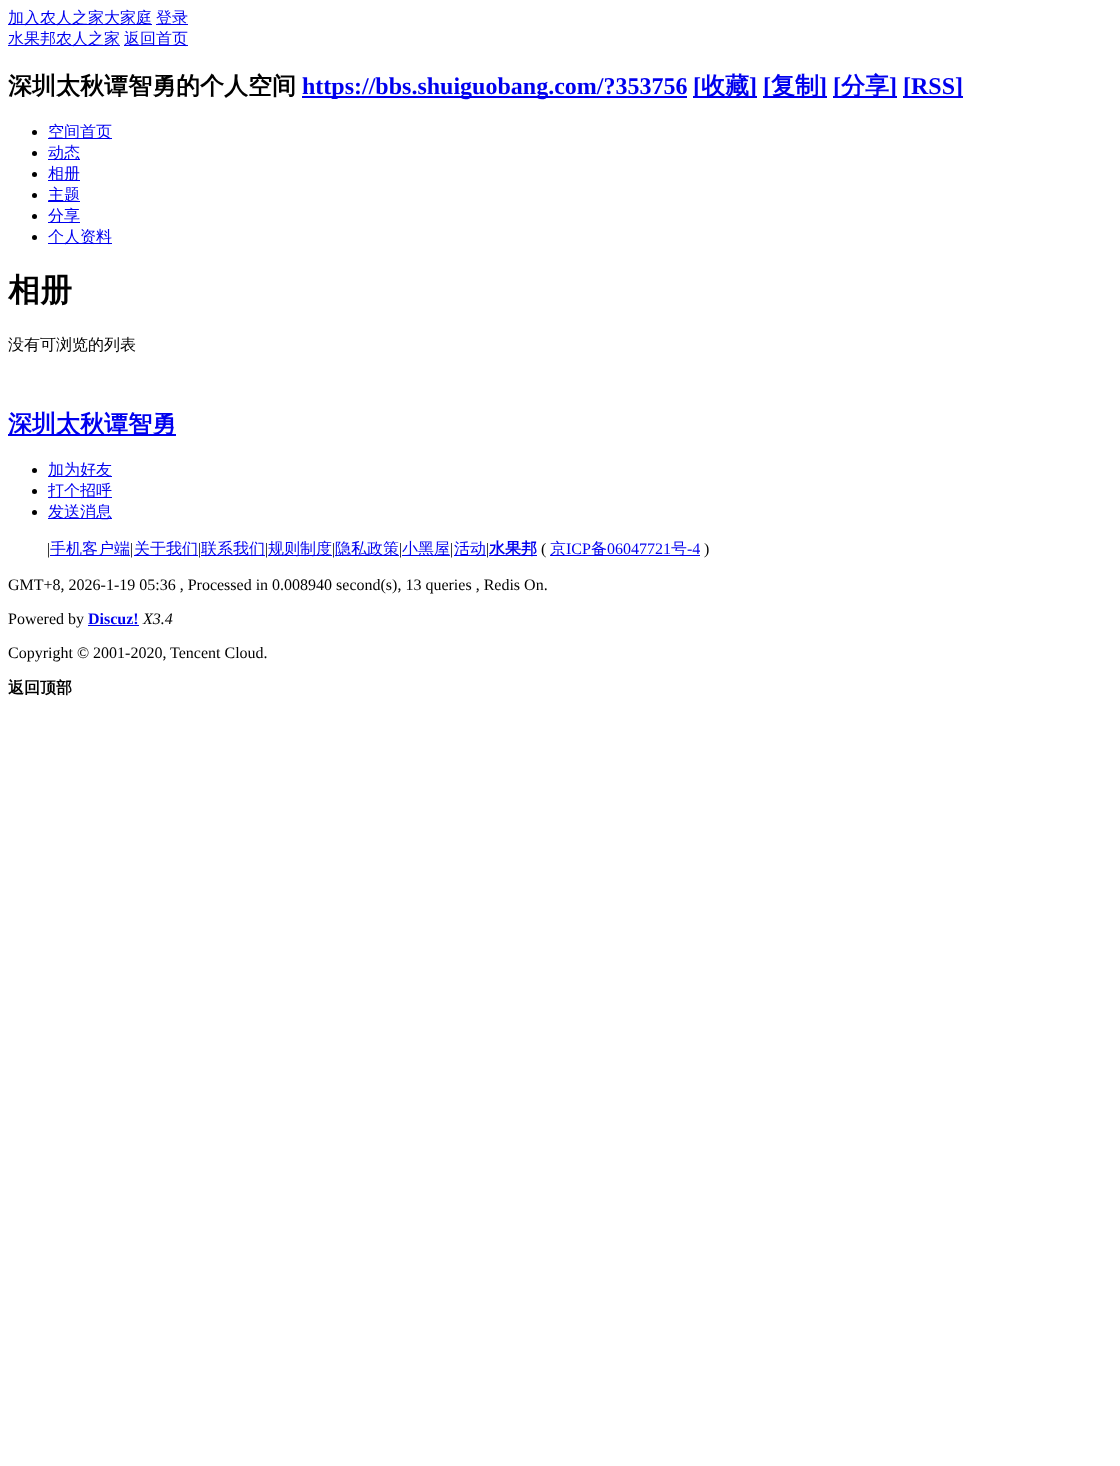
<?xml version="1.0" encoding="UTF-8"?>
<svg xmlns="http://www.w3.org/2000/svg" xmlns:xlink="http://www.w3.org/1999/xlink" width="1120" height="1466">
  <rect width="100%" height="100%" fill="#ffffff" />
  <rect x="8" y="24" width="144" height="1" fill="#0000ee" />
  <rect x="156" y="24" width="32" height="1" fill="#0000ee" />
  <rect x="8" y="45" width="112" height="1" fill="#0000ee" />
  <rect x="124" y="45" width="64" height="1" fill="#0000ee" />
  <rect x="302" y="96" width="385" height="2" fill="#0000ee" />
  <rect x="693" y="96" width="64" height="2" fill="#0000ee" />
  <rect x="763" y="96" width="64" height="2" fill="#0000ee" />
  <rect x="833" y="96" width="64" height="2" fill="#0000ee" />
  <rect x="903" y="96" width="60" height="2" fill="#0000ee" />
  <circle cx="34.5" cy="132.5" r="2.5" fill="#000000" />
  <rect x="48" y="138" width="64" height="1" fill="#0000ee" />
  <circle cx="34.5" cy="153.5" r="2.5" fill="#000000" />
  <rect x="48" y="159" width="32" height="1" fill="#0000ee" />
  <circle cx="34.5" cy="174.5" r="2.5" fill="#000000" />
  <rect x="48" y="180" width="32" height="1" fill="#0000ee" />
  <circle cx="34.5" cy="195.5" r="2.5" fill="#000000" />
  <rect x="48" y="201" width="32" height="1" fill="#0000ee" />
  <circle cx="34.5" cy="216.5" r="2.5" fill="#000000" />
  <rect x="48" y="222" width="32" height="1" fill="#0000ee" />
  <circle cx="34.5" cy="237.5" r="2.5" fill="#000000" />
  <rect x="48" y="243" width="64" height="1" fill="#0000ee" />
  <rect x="8" y="434" width="168" height="2" fill="#0000ee" />
  <circle cx="34.5" cy="470.5" r="2.5" fill="#000000" />
  <rect x="48" y="476" width="64" height="1" fill="#0000ee" />
  <circle cx="34.5" cy="491.5" r="2.5" fill="#000000" />
  <rect x="48" y="497" width="64" height="1" fill="#0000ee" />
  <circle cx="34.5" cy="512.5" r="2.5" fill="#000000" />
  <rect x="48" y="518" width="64" height="1" fill="#0000ee" />
  <rect x="50" y="555" width="80" height="1" fill="#0000ee" />
  <rect x="134" y="555" width="64" height="1" fill="#0000ee" />
  <rect x="201" y="555" width="64" height="1" fill="#0000ee" />
  <rect x="268" y="555" width="64" height="1" fill="#0000ee" />
  <rect x="335" y="555" width="64" height="1" fill="#0000ee" />
  <rect x="402" y="555" width="48" height="1" fill="#0000ee" />
  <rect x="454" y="555" width="32" height="1" fill="#0000ee" />
  <rect x="489" y="555" width="48" height="1" fill="#0000ee" />
  <rect x="550" y="555" width="150" height="1" fill="#0000ee" />
  <rect x="88" y="625" width="51" height="1" fill="#0000ee" />
  <text x="8" y="23" style="font-family: WenQuanYi Zen Hei; font-size: 16px; font-weight: 500; fill: #0000ee">加入农人之家大家庭</text>
  <text x="156" y="23" style="font-family: WenQuanYi Zen Hei; font-size: 16px; font-weight: 500; fill: #0000ee">登录</text>
  <text x="8" y="44" style="font-family: WenQuanYi Zen Hei; font-size: 16px; font-weight: 500; fill: #0000ee">水果邦农人之家</text>
  <text x="124" y="44" style="font-family: WenQuanYi Zen Hei; font-size: 16px; font-weight: 500; fill: #0000ee">返回首页</text>
  <text x="8" y="94" style="font-family: WenQuanYi Zen Hei; font-size: 24px; font-weight: bold; fill: #000000">深圳太秋谭智勇的个人空间</text>
  <text x="302" y="94" style="font-family: Liberation Serif; font-size: 24px; font-weight: bold; fill: #0000ee">https://bbs.shuiguobang.com/?353756</text>
  <text x="693" y="94" style="font-family: Liberation Serif; font-size: 24px; font-weight: bold; fill: #0000ee">[</text>
  <text x="701" y="94" style="font-family: WenQuanYi Zen Hei; font-size: 24px; font-weight: bold; fill: #0000ee">收藏</text>
  <text x="749" y="94" style="font-family: Liberation Serif; font-size: 24px; font-weight: bold; fill: #0000ee">]</text>
  <text x="763" y="94" style="font-family: Liberation Serif; font-size: 24px; font-weight: bold; fill: #0000ee">[</text>
  <text x="771" y="94" style="font-family: WenQuanYi Zen Hei; font-size: 24px; font-weight: bold; fill: #0000ee">复制</text>
  <text x="819" y="94" style="font-family: Liberation Serif; font-size: 24px; font-weight: bold; fill: #0000ee">]</text>
  <text x="833" y="94" style="font-family: Liberation Serif; font-size: 24px; font-weight: bold; fill: #0000ee">[</text>
  <text x="841" y="94" style="font-family: WenQuanYi Zen Hei; font-size: 24px; font-weight: bold; fill: #0000ee">分享</text>
  <text x="889" y="94" style="font-family: Liberation Serif; font-size: 24px; font-weight: bold; fill: #0000ee">]</text>
  <text x="903" y="94" style="font-family: Liberation Serif; font-size: 24px; font-weight: bold; fill: #0000ee">[RSS]</text>
  <text x="48" y="137" style="font-family: WenQuanYi Zen Hei; font-size: 16px; font-weight: 500; fill: #0000ee">空间首页</text>
  <text x="48" y="158" style="font-family: WenQuanYi Zen Hei; font-size: 16px; font-weight: 500; fill: #0000ee">动态</text>
  <text x="48" y="179" style="font-family: WenQuanYi Zen Hei; font-size: 16px; font-weight: 500; fill: #0000ee">相册</text>
  <text x="48" y="200" style="font-family: WenQuanYi Zen Hei; font-size: 16px; font-weight: 500; fill: #0000ee">主题</text>
  <text x="48" y="221" style="font-family: WenQuanYi Zen Hei; font-size: 16px; font-weight: 500; fill: #0000ee">分享</text>
  <text x="48" y="242" style="font-family: WenQuanYi Zen Hei; font-size: 16px; font-weight: 500; fill: #0000ee">个人资料</text>
  <text x="8" y="301" style="font-family: WenQuanYi Zen Hei; font-size: 32px; font-weight: bold; fill: #000000">相册</text>
  <text x="8" y="350" style="font-family: WenQuanYi Zen Hei; font-size: 16px; font-weight: 500; fill: #000000">没有可浏览的列表</text>
  <text x="8" y="432" style="font-family: WenQuanYi Zen Hei; font-size: 24px; font-weight: bold; fill: #0000ee">深圳太秋谭智勇</text>
  <text x="48" y="475" style="font-family: WenQuanYi Zen Hei; font-size: 16px; font-weight: 500; fill: #0000ee">加为好友</text>
  <text x="48" y="496" style="font-family: WenQuanYi Zen Hei; font-size: 16px; font-weight: 500; fill: #0000ee">打个招呼</text>
  <text x="48" y="517" style="font-family: WenQuanYi Zen Hei; font-size: 16px; font-weight: 500; fill: #0000ee">发送消息</text>
  <text x="47" y="554" style="font-family: Liberation Serif; font-size: 16px; fill: #000000">|</text>
  <text x="50" y="554" style="font-family: WenQuanYi Zen Hei; font-size: 16px; font-weight: 500; fill: #0000ee">手机客户端</text>
  <text x="130" y="554" style="font-family: Liberation Serif; font-size: 16px; fill: #000000">|</text>
  <text x="134" y="554" style="font-family: WenQuanYi Zen Hei; font-size: 16px; font-weight: 500; fill: #0000ee">关于我们</text>
  <text x="198" y="554" style="font-family: Liberation Serif; font-size: 16px; fill: #000000">|</text>
  <text x="201" y="554" style="font-family: WenQuanYi Zen Hei; font-size: 16px; font-weight: 500; fill: #0000ee">联系我们</text>
  <text x="265" y="554" style="font-family: Liberation Serif; font-size: 16px; fill: #000000">|</text>
  <text x="268" y="554" style="font-family: WenQuanYi Zen Hei; font-size: 16px; font-weight: 500; fill: #0000ee">规则制度</text>
  <text x="332" y="554" style="font-family: Liberation Serif; font-size: 16px; fill: #000000">|</text>
  <text x="335" y="554" style="font-family: WenQuanYi Zen Hei; font-size: 16px; font-weight: 500; fill: #0000ee">隐私政策</text>
  <text x="399" y="554" style="font-family: Liberation Serif; font-size: 16px; fill: #000000">|</text>
  <text x="402" y="554" style="font-family: WenQuanYi Zen Hei; font-size: 16px; font-weight: 500; fill: #0000ee">小黑屋</text>
  <text x="450" y="554" style="font-family: Liberation Serif; font-size: 16px; fill: #000000">|</text>
  <text x="454" y="554" style="font-family: WenQuanYi Zen Hei; font-size: 16px; font-weight: 500; fill: #0000ee">活动</text>
  <text x="486" y="554" style="font-family: Liberation Serif; font-size: 16px; fill: #000000">|</text>
  <text x="489" y="554" style="font-family: WenQuanYi Zen Hei; font-size: 16px; font-weight: bold; fill: #0000ee">水果邦</text>
  <text x="541" y="554" style="font-family: Liberation Serif; font-size: 16px; fill: #000000">(</text>
  <text x="550" y="554" style="font-family: WenQuanYi Zen Hei; font-size: 16px; font-weight: 500; fill: #0000ee">京</text>
  <text x="566" y="554" style="font-family: Liberation Serif; font-size: 16px; fill: #0000ee">ICP</text>
  <text x="591" y="554" style="font-family: WenQuanYi Zen Hei; font-size: 16px; font-weight: 500; fill: #0000ee">备</text>
  <text x="607" y="554" style="font-family: Liberation Serif; font-size: 16px; fill: #0000ee">06047721</text>
  <text x="671" y="554" style="font-family: WenQuanYi Zen Hei; font-size: 16px; font-weight: 500; fill: #0000ee">号</text>
  <text x="687" y="554" style="font-family: Liberation Serif; font-size: 16px; fill: #0000ee">-4</text>
  <text x="704" y="554" style="font-family: Liberation Serif; font-size: 16px; fill: #000000">)</text>
  <text x="8" y="590" style="font-family: Liberation Serif; font-size: 16px; fill: #000000">GMT+8, 2026-1-19 05:36 , Processed in 0.008940 second(s), 13 queries , Redis On.</text>
  <text x="8" y="624" style="font-family: Liberation Serif; font-size: 16px; fill: #000000">Powered by</text>
  <text x="88" y="624" style="font-family: Liberation Serif; font-size: 16px; font-weight: bold; fill: #0000ee">Discuz!</text>
  <text x="143" y="624" style="font-family: Liberation Serif; font-size: 16px; font-style: italic; fill: #000000">X3.4</text>
  <text x="8" y="658" style="font-family: Liberation Serif; font-size: 16px; fill: #000000">Copyright © 2001-2020, Tencent Cloud.</text>
  <text x="8" y="693" style="font-family: WenQuanYi Zen Hei; font-size: 16px; font-weight: bold; fill: #000000">返回顶部</text>
</svg>
